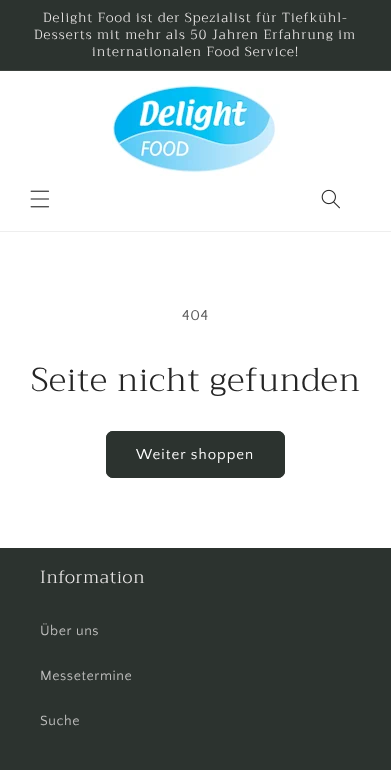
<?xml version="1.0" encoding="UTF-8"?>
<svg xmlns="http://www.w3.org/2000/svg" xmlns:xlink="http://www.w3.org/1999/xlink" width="391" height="770">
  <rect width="100%" height="100%" fill="#ffffff" />
  <rect width="391" height="70" fill="#2c332f" />
  <rect y="70" width="391" height="1" fill="#3c423e" />
  <image x="112" y="80" width="168" height="96" xlink:href="image1.png" />
  <rect y="231" width="391" height="1" fill="#eeeeee" />
  <image x="30" y="190" width="20" height="18" xlink:href="image2.png" />
  <image x="321" y="189" width="19" height="20" xlink:href="image3.png" />
  <rect x="106" y="431" width="179" height="47" rx="7" fill="#2c332f" />
  <rect x="106.5" y="431.5" width="178" height="46" rx="6.5" fill="none" stroke="#2c332f" />
  <rect y="548" width="391" height="222" fill="#2c332f" />
  <text x="43" y="22" style="font-family: Trirong; font-size: 13.2px; font-weight: 300; letter-spacing: 1px; fill: #efecec">Delight Food ist der Spezialist für Tiefkühl-</text>
  <text x="34" y="39" style="font-family: Trirong; font-size: 13.2px; font-weight: 300; letter-spacing: 1px; fill: #efecec">Desserts mit mehr als 50 Jahren Erfahrung im</text>
  <text x="92" y="56" style="font-family: Trirong; font-size: 13.2px; font-weight: 300; letter-spacing: 1px; fill: #efecec">internationalen Food Service!</text>
  <text x="182" y="320" style="font-family: Quattrocento Sans; font-size: 15px; letter-spacing: 0.6px; fill: #5c5c5c">404</text>
  <text x="31" y="391" style="font-family: Trirong; font-size: 33px; font-weight: 300; letter-spacing: 0.7px; fill: #252525">Seite nicht gefunden</text>
  <text x="136" y="459" style="font-family: Quattrocento Sans; font-size: 15px; letter-spacing: 1px; fill: #ffffff">Weiter shoppen</text>
  <text x="40" y="583" style="font-family: Trirong; font-size: 17.5px; font-weight: 300; letter-spacing: 0.7px; fill: #efecec">Information</text>
  <text x="40" y="635" style="font-family: Quattrocento Sans; font-size: 14px; letter-spacing: 0.6px; fill: #bebebd">Über uns</text>
  <text x="40" y="680" style="font-family: Quattrocento Sans; font-size: 14px; letter-spacing: 0.6px; fill: #bebebd">Messetermine</text>
  <text x="40" y="725" style="font-family: Quattrocento Sans; font-size: 14px; letter-spacing: 0.6px; fill: #bebebd">Suche</text>
</svg>
